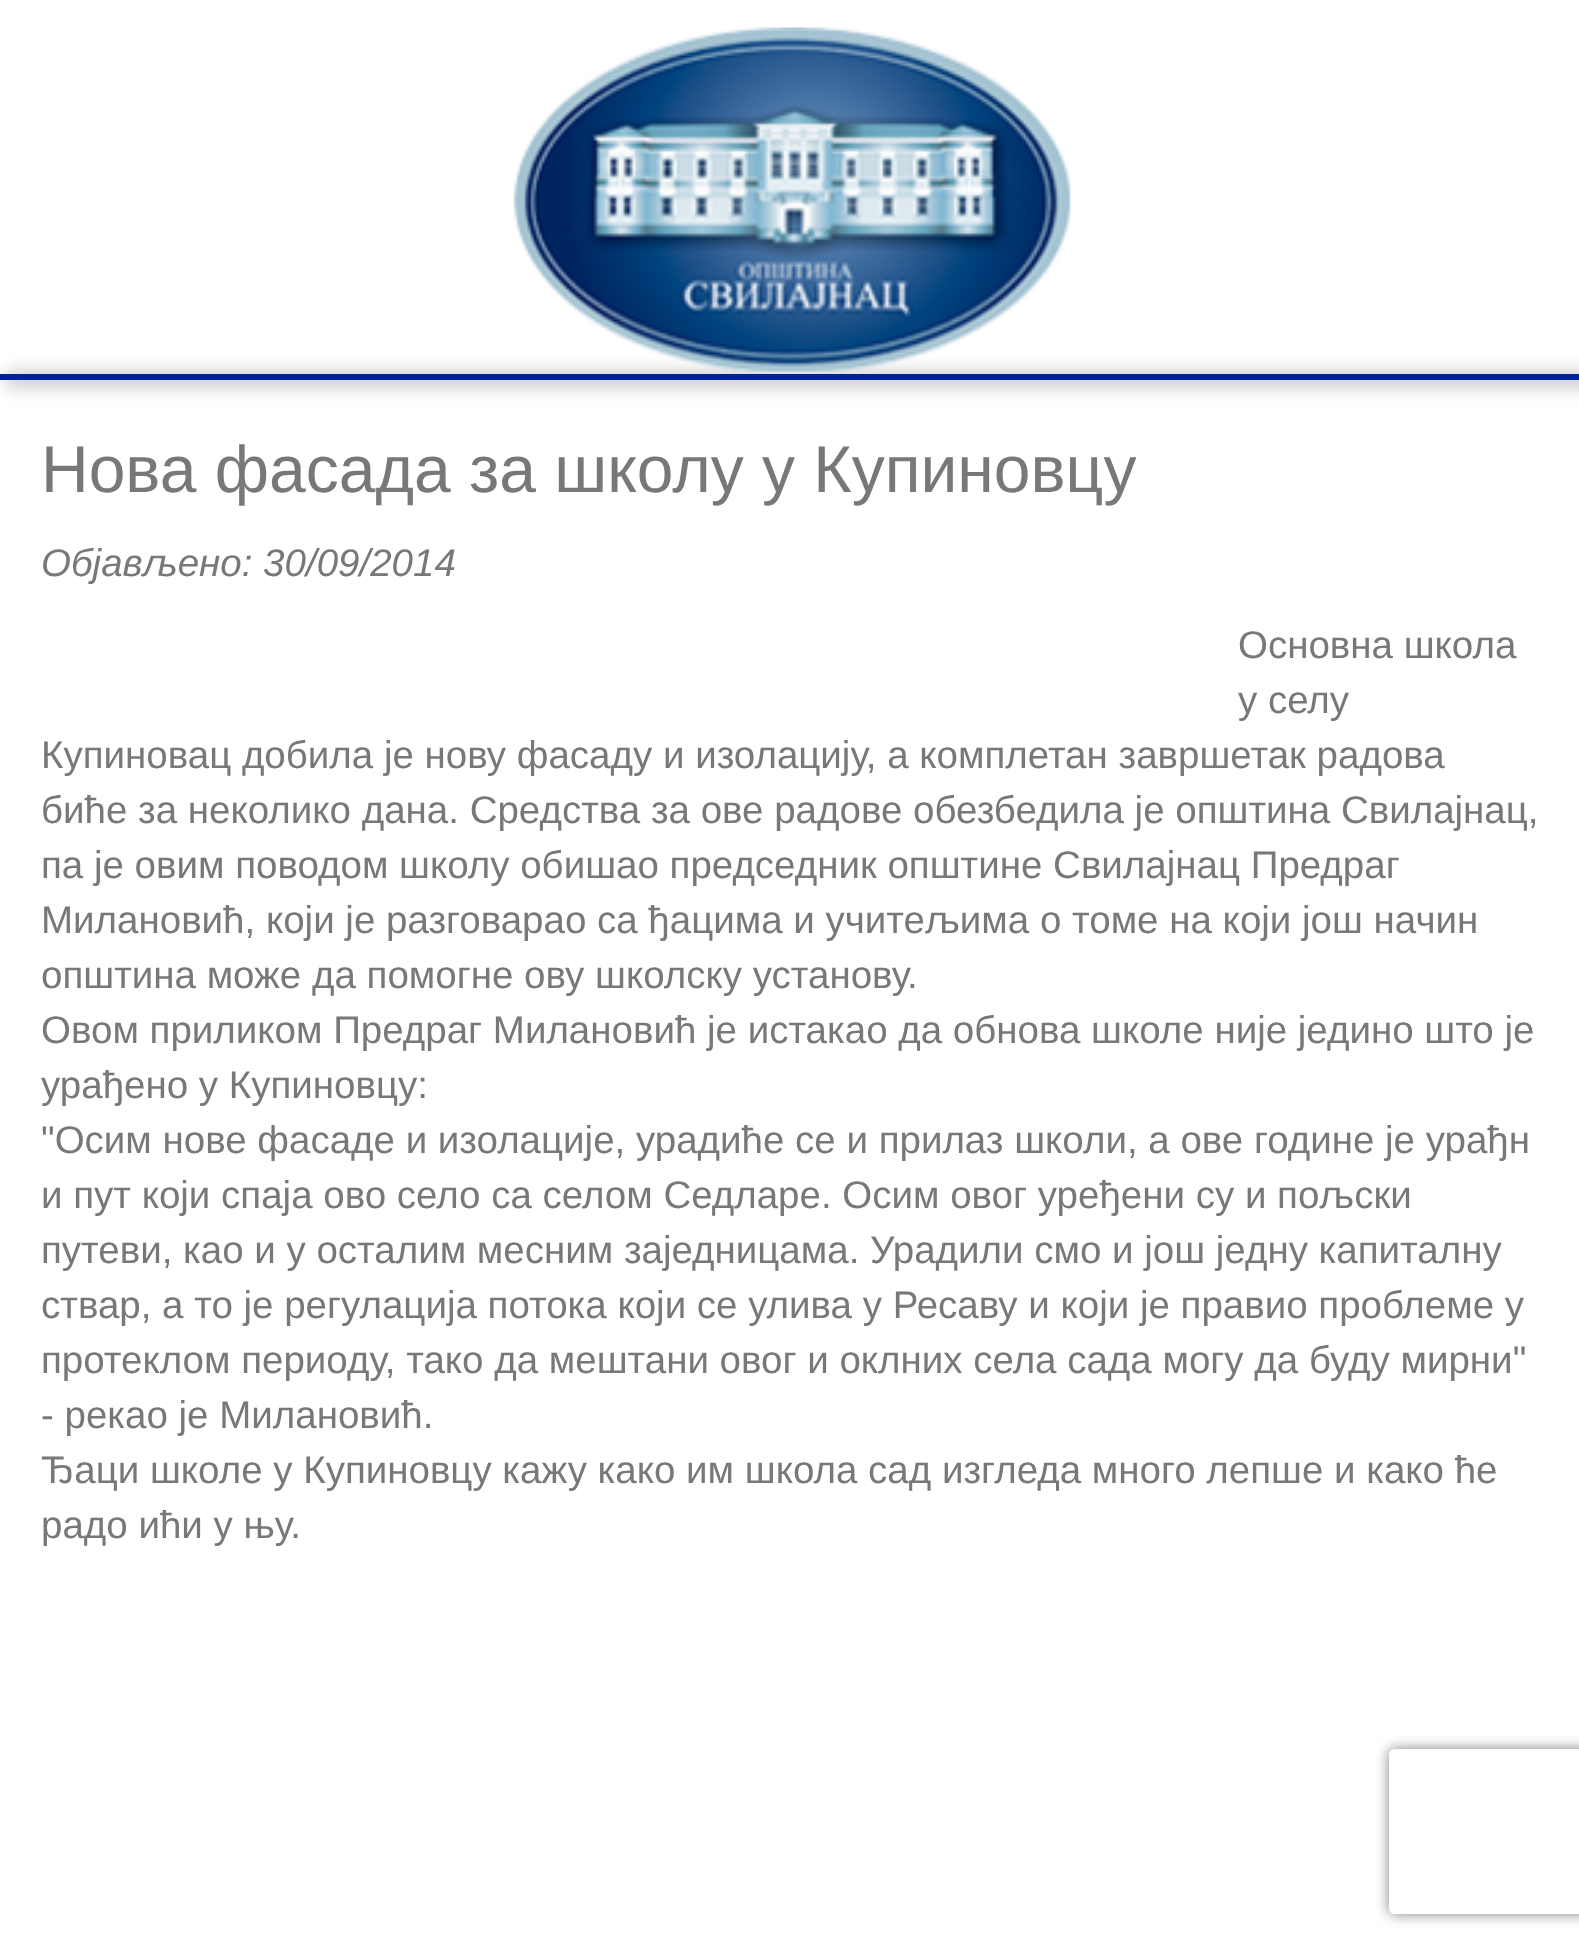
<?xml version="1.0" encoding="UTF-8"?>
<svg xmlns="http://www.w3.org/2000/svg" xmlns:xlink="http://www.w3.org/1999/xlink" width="1579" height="1952">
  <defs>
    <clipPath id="clip1"><path d="M 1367 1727 h 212 v 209 h -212 z m 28 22 h 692 c 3.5 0 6 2.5 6 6 v 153 c 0 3.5 -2.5 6 -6 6 h -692 c -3.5 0 -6 -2.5 -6 -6 v -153 c 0 -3.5 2.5 -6 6 -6 z" clip-rule="evenodd" /></clipPath>
  </defs>
  <rect width="100%" height="100%" fill="#ffffff" />
  <rect x="6" y="371" width="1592" height="17" fill="#cccccc" filter="blur(8px)" />
  <image x="513" y="27" width="558" height="345" xlink:href="image1.png" />
  <rect y="374" width="1579" height="6" fill="#002495" />
  <g clip-path="url(#clip1)">
    <rect x="1389" y="1749" width="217" height="165" rx="6" fill="#808080" filter="blur(7px)" />
  </g>
  <text x="41" y="492" style="font-family: Liberation Sans; font-size: 66px; fill: #787878">Нова фасада за школу у Купиновцу</text>
  <text x="41" y="576" style="font-family: Liberation Sans; font-size: 38.5px; font-style: italic; fill: #787878">Објављено: 30/09/2014</text>
  <text x="1238" y="658" style="font-family: Liberation Sans; font-size: 38.5px; fill: #787878">Основна школа</text>
  <text x="1238" y="713" style="font-family: Liberation Sans; font-size: 38.5px; fill: #787878">у селу</text>
  <text x="41" y="768" style="font-family: Liberation Sans; font-size: 38.5px; fill: #787878">Купиновац добила је нову фасаду и изолацију, а комплетан завршетак радова</text>
  <text x="41" y="823" style="font-family: Liberation Sans; font-size: 38.5px; fill: #787878">биће за неколико дана. Средства за ове радове обезбедила је општина Свилајнац,</text>
  <text x="41" y="878" style="font-family: Liberation Sans; font-size: 38.5px; fill: #787878">па је овим поводом школу обишао председник општине Свилајнац Предраг</text>
  <text x="41" y="933" style="font-family: Liberation Sans; font-size: 38.5px; fill: #787878">Милановић, који је разговарао са ђацима и учитељима о томе на који још начин</text>
  <text x="41" y="988" style="font-family: Liberation Sans; font-size: 38.5px; fill: #787878">општина може да помогне ову школску установу.</text>
  <text x="41" y="1043" style="font-family: Liberation Sans; font-size: 38.5px; fill: #787878">Овом приликом Предраг Милановић је истакао да обнова школе није једино што је</text>
  <text x="41" y="1098" style="font-family: Liberation Sans; font-size: 38.5px; fill: #787878">урађено у Купиновцу:</text>
  <text x="41" y="1153" style="font-family: Liberation Sans; font-size: 38.5px; fill: #787878">"Осим нове фасаде и изолације, урадиће се и прилаз школи, а ове године је урађн</text>
  <text x="41" y="1208" style="font-family: Liberation Sans; font-size: 38.5px; fill: #787878">и пут који спаја ово село са селом Седларе. Осим овог уређени су и пољски</text>
  <text x="41" y="1263" style="font-family: Liberation Sans; font-size: 38.5px; fill: #787878">путеви, као и у осталим месним заједницама. Урадили смо и још једну капиталну</text>
  <text x="41" y="1318" style="font-family: Liberation Sans; font-size: 38.5px; fill: #787878">ствар, а то је регулација потока који се улива у Ресаву и који је правио проблеме у</text>
  <text x="41" y="1373" style="font-family: Liberation Sans; font-size: 38.5px; fill: #787878">протеклом периоду, тако да мештани овог и оклних села сада могу да буду мирни"</text>
  <text x="41" y="1428" style="font-family: Liberation Sans; font-size: 38.5px; fill: #787878">- рекао је Милановић.</text>
  <text x="41" y="1483" style="font-family: Liberation Sans; font-size: 38.5px; fill: #787878">Ђаци школе у Купиновцу кажу како им школа сад изгледа много лепше и како ће</text>
  <text x="41" y="1538" style="font-family: Liberation Sans; font-size: 38.5px; fill: #787878">радо ићи у њу.</text>
</svg>
